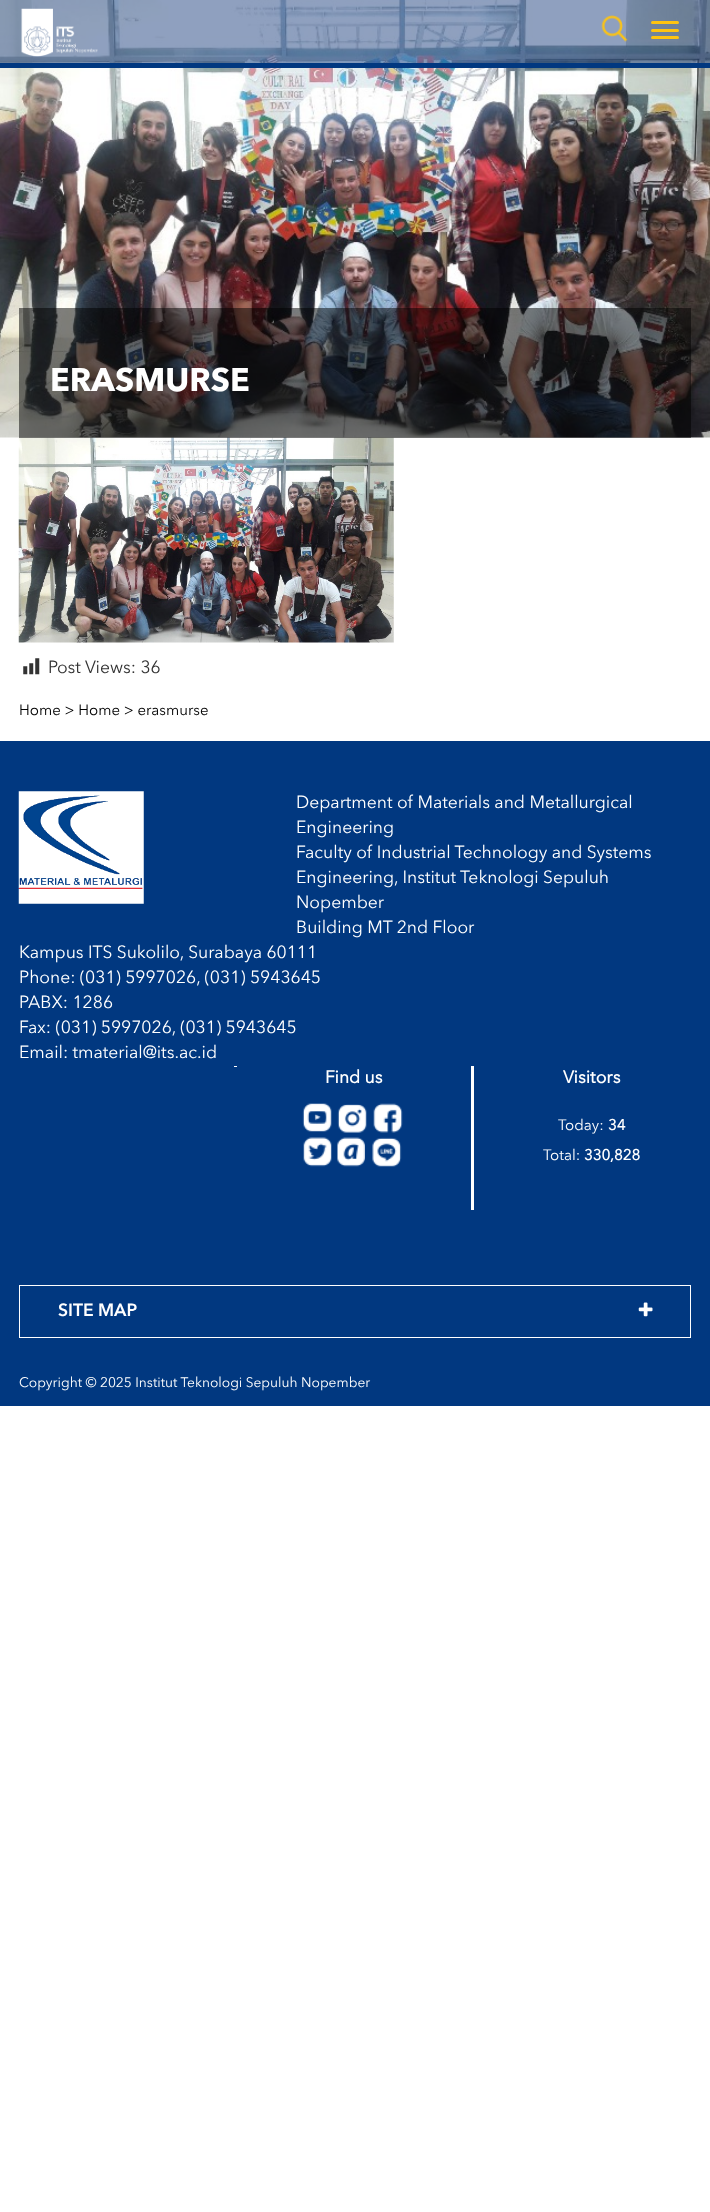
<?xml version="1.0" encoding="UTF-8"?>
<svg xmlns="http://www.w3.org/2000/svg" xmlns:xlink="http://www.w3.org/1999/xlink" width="710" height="2212">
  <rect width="100%" height="100%" fill="#ffffff" />
  <image x="0" y="0" width="710" height="438" xlink:href="image3.png" />
  <rect width="710" height="63" fill="#20417f" fill-opacity="0.5" />
  <rect y="63" width="710" height="5" fill="#013880" />
  <image x="21" y="8" width="77" height="49" xlink:href="image1.png" />
  <rect x="651" y="21" width="28" height="3" rx="1.5" fill="#ffc410" />
  <rect x="651" y="29" width="28" height="3" rx="1.5" fill="#ffc410" />
  <rect x="651" y="36" width="28" height="3" rx="1.5" fill="#ffc410" />
  <image x="601" y="15" width="27" height="27" xlink:href="image2.png" />
  <image x="18" y="437" width="376" height="206" xlink:href="image4.png" />
  <rect x="19" y="308" width="672" height="130" fill="#000000" fill-opacity="0.5" />
  <image x="23" y="658" width="17" height="17" xlink:href="image5.png" />
  <rect y="741" width="710" height="665" fill="#013880" />
  <image x="18" y="791" width="126" height="113" xlink:href="image6.png" />
  <rect x="234" y="1066" width="3" height="1" fill="#ffffff" />
  <rect x="471" y="1066" width="3" height="144" fill="#ffffff" />
  <image x="302" y="1103" width="30" height="29" xlink:href="image7.png" />
  <image x="337" y="1104" width="30" height="29" xlink:href="image8.png" />
  <image x="373" y="1103" width="30" height="30" xlink:href="image9.png" />
  <image x="303" y="1137" width="29" height="30" xlink:href="image10.png" />
  <image x="337" y="1137" width="28" height="30" xlink:href="image11.png" />
  <image x="372" y="1137" width="30" height="30" xlink:href="image12.png" />
  <rect x="19.5" y="1285.5" width="671" height="52" fill="none" stroke="#ffffff" />
  <image x="638" y="1302" width="15" height="15" xlink:href="image13.png" />
  <text x="50" y="391" style="font-family: 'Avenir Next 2'; font-size: 32.5px; font-weight: bold; fill: #ffffff">ERASMURSE</text>
  <text x="48" y="673" style="font-family: Avenir Next; font-size: 17.5px; fill: #333333">Post Views: 36</text>
  <text x="19" y="715" style="font-family: Avenir Next; font-size: 15px; fill: #000000">Home &gt; Home &gt; erasmurse</text>
  <text x="296" y="808" style="font-family: Avenir Next; font-size: 17.5px; fill: #ffffff">Department of Materials and Metallurgical</text>
  <text x="296" y="833" style="font-family: Avenir Next; font-size: 17.5px; fill: #ffffff">Engineering</text>
  <text x="296" y="858" style="font-family: Avenir Next; font-size: 17.5px; fill: #ffffff">Faculty of Industrial Technology and Systems</text>
  <text x="296" y="883" style="font-family: Avenir Next; font-size: 17.5px; fill: #ffffff">Engineering, Institut Teknologi Sepuluh</text>
  <text x="296" y="908" style="font-family: Avenir Next; font-size: 17.5px; fill: #ffffff">Nopember</text>
  <text x="296" y="933" style="font-family: Avenir Next; font-size: 17.5px; fill: #ffffff">Building MT 2nd Floor</text>
  <text x="19" y="958" style="font-family: Avenir Next; font-size: 17.5px; fill: #ffffff">Kampus ITS Sukolilo, Surabaya 60111</text>
  <text x="19" y="983" style="font-family: Avenir Next; font-size: 17.5px; fill: #ffffff">Phone: (031) 5997026, (031) 5943645</text>
  <text x="19" y="1008" style="font-family: Avenir Next; font-size: 17.5px; fill: #ffffff">PABX: 1286</text>
  <text x="19" y="1033" style="font-family: Avenir Next; font-size: 17.5px; fill: #ffffff">Fax: (031) 5997026, (031) 5943645</text>
  <text x="19" y="1058" style="font-family: Avenir Next; font-size: 17.5px; fill: #ffffff">Email: tmaterial@its.ac.id</text>
  <text x="325" y="1083" style="font-family: Avenir Next; font-size: 17.5px; font-weight: bold; fill: #ffffff">Find us</text>
  <text x="563" y="1083" style="font-family: Avenir Next; font-size: 17.5px; font-weight: bold; fill: #ffffff">Visitors</text>
  <text x="558" y="1130" style="font-family: Avenir Next; font-size: 15px; fill: #ffffff">Today:</text>
  <text x="608" y="1130" style="font-family: Avenir Next; font-size: 15px; font-weight: bold; fill: #ffffff">34</text>
  <text x="543" y="1160" style="font-family: Avenir Next; font-size: 15px; fill: #ffffff">Total:</text>
  <text x="584" y="1160" style="font-family: Avenir Next; font-size: 15px; font-weight: bold; fill: #ffffff">330,828</text>
  <text x="58" y="1316" style="font-family: Avenir Next; font-size: 17.5px; font-weight: 600; fill: #ffffff">SITE MAP</text>
  <text x="19" y="1387" style="font-family: Avenir Next; font-size: 13.75px; fill: #ffffff">Copyright © 2025 Institut Teknologi Sepuluh Nopember</text>
</svg>
